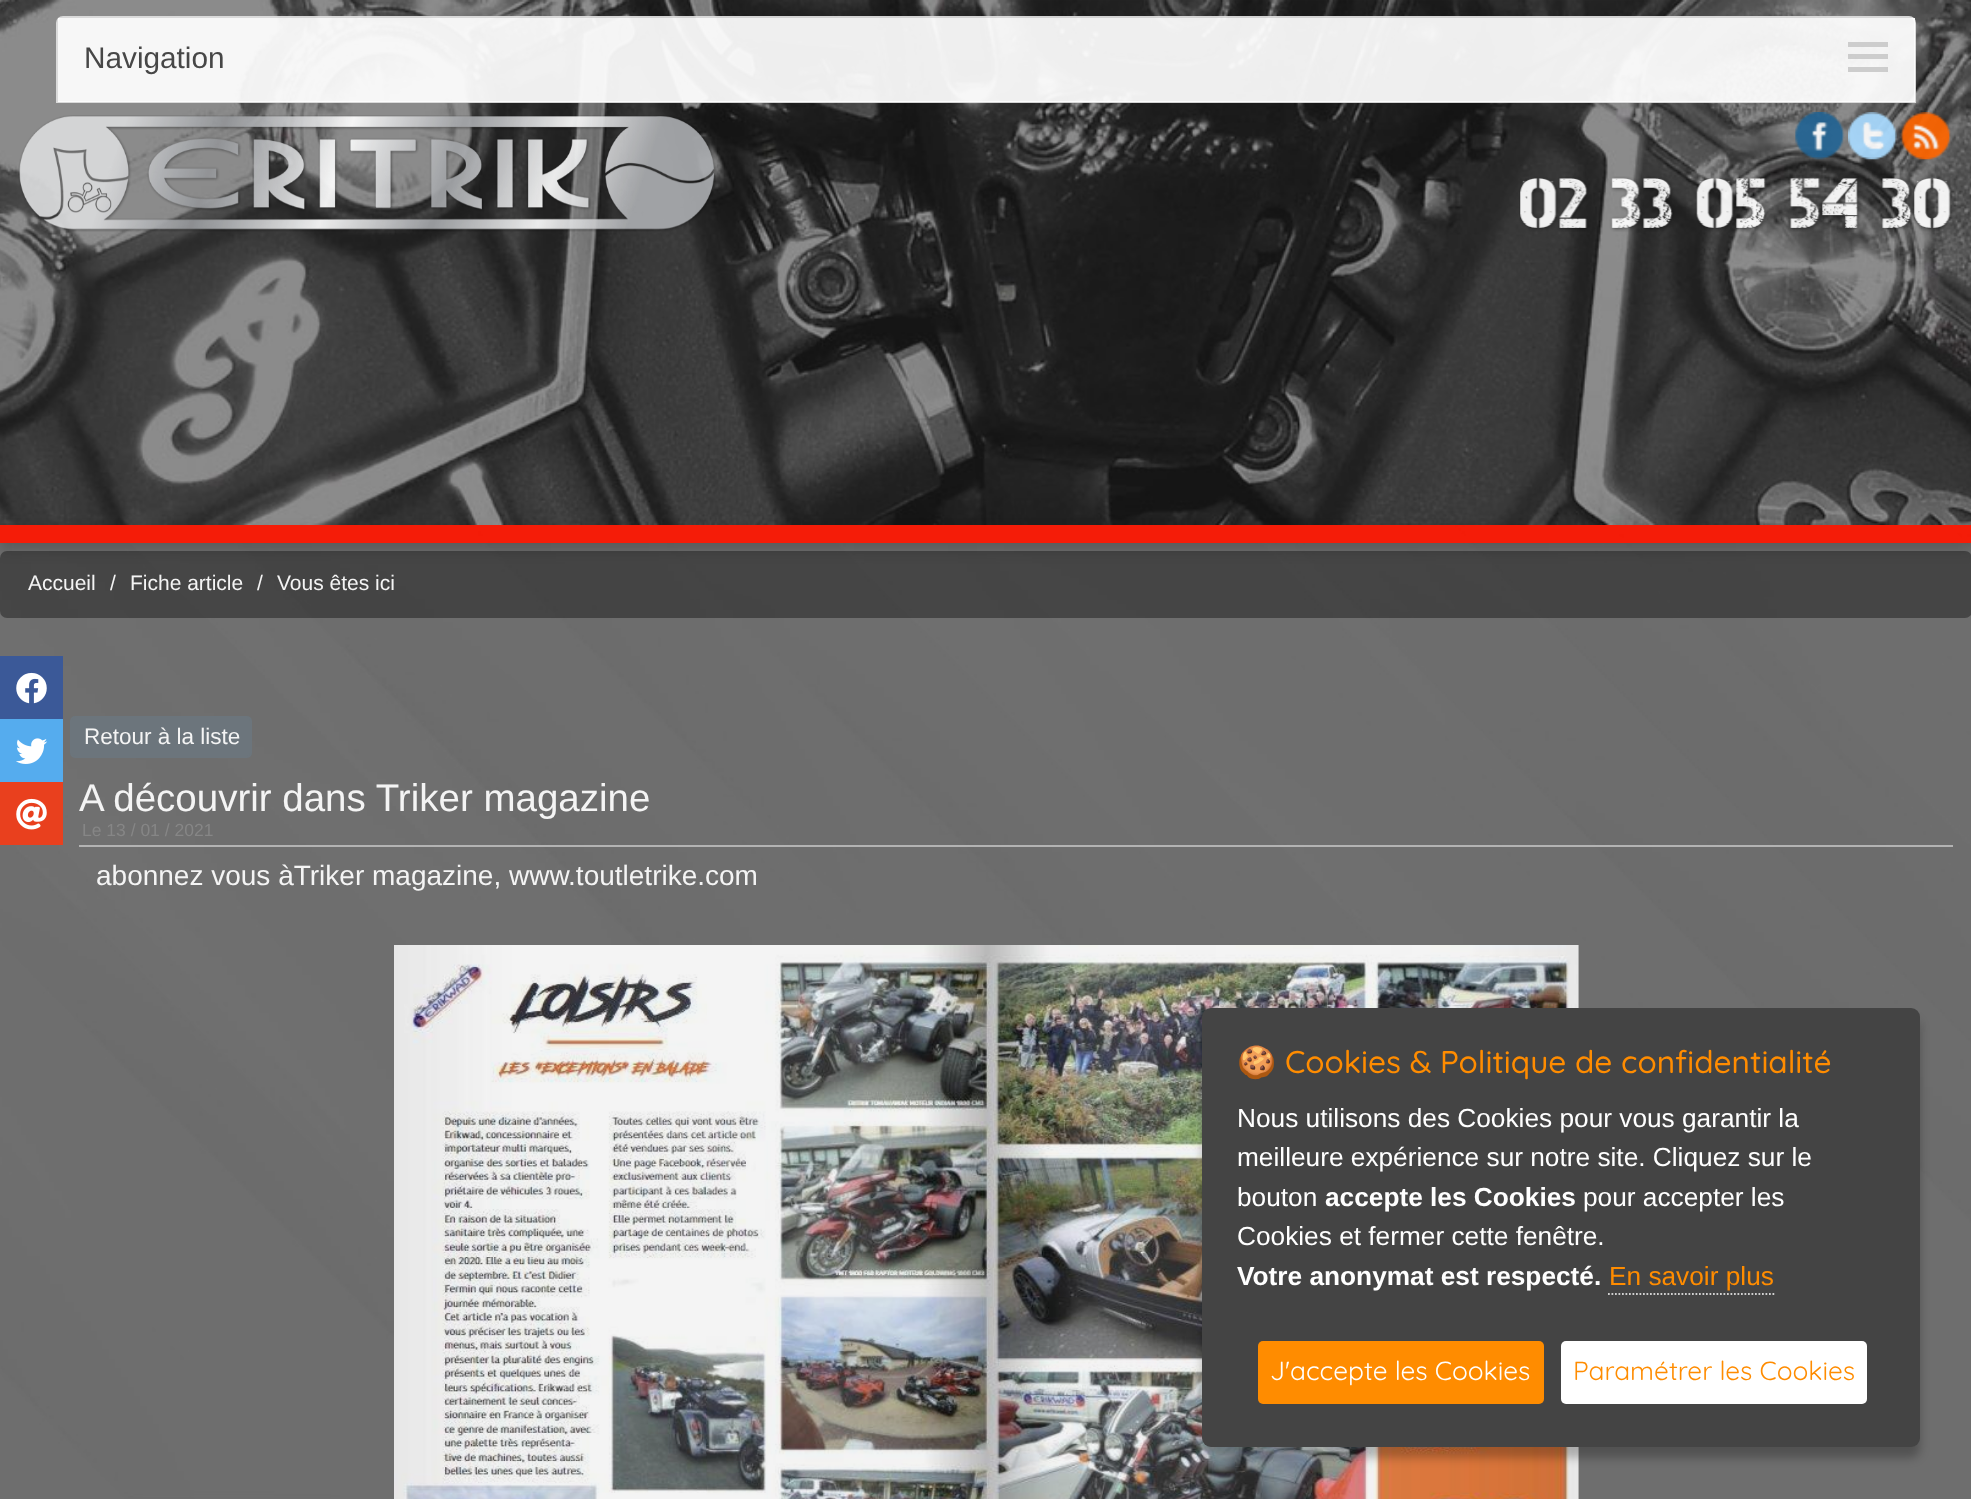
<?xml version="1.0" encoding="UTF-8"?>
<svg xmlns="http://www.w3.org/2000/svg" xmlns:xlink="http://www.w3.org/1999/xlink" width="1971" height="1499">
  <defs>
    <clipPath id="clip1"><path d="M 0 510 h 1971 v 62 h -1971 z m 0 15 h 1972 v 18 h -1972 z" clip-rule="evenodd" /></clipPath>
  </defs>
  <rect width="100%" height="100%" fill="#ffffff" />
  <image x="0" y="0" width="1971" height="1499" xlink:href="image1.png" />
  <image x="0" y="0" width="1971" height="525" xlink:href="image2.png" />
  <image x="18" y="115" width="698" height="117" xlink:href="image3.png" />
  <image x="1795" y="112" width="50" height="48" xlink:href="image4.png" />
  <image x="1848" y="112" width="49" height="48" xlink:href="image5.png" />
  <image x="1900" y="112" width="51" height="48" xlink:href="image6.png" />
  <image x="1519" y="176" width="435" height="56" xlink:href="image7.png" />
  <path d="M 63 17 h 1846 c 3.5 0 6 2.5 6 6 v 79 h -1858 v -79 c 0 -3.5 2.5 -6 6 -6 z" fill="none" stroke="#e0e0e0" stroke-opacity="0.93" stroke-width="2" />
  <rect x="58" y="18" width="1857" height="84" fill="#ffffff" fill-opacity="0.93" />
  <rect x="1848" y="54" width="40" height="5" fill="#c9c9c9" fill-opacity="0.93" />
  <rect x="1848" y="42" width="40" height="5" fill="#c9c9c9" fill-opacity="0.93" />
  <rect x="1848" y="67" width="40" height="5" fill="#c9c9c9" fill-opacity="0.93" />
  <g clip-path="url(#clip1)">
    <rect y="532" width="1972" height="18" fill="#000000" fill-opacity="0.19" filter="blur(7px)" />
  </g>
  <rect y="525" width="1971" height="18" fill="#ff1500" fill-opacity="0.93" />
  <rect y="551" width="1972" height="67" rx="7" fill="#000000" fill-opacity="0.37" />
  <rect x="71" y="717" width="180" height="40" rx="4" fill="#6c757c" stroke="#6c757c" stroke-width="2" />
  <rect x="79" y="845" width="1874" height="2" fill="#b3b3b3" />
  <image x="394" y="945" width="1185" height="554" xlink:href="image8.png" />
  <rect y="656" width="63" height="63" fill="#3b5998" />
  <image x="16" y="672" width="31" height="32" xlink:href="image9.png" />
  <rect y="719" width="63" height="63" fill="#55acee" />
  <image x="16" y="738" width="32" height="26" xlink:href="image10.png" />
  <rect y="782" width="63" height="63" fill="#e9401e" />
  <image x="16" y="798" width="31" height="32" xlink:href="image11.png" />
  <rect x="1202" y="1019" width="718" height="439" rx="9" fill="#000000" fill-opacity="0.25" filter="blur(5px)" />
  <rect x="1202" y="1008" width="718" height="439" rx="9" fill="#444444" />
  <path d="M 1608 1294 h 166.5" fill="none" stroke="#d0d0d0" stroke-width="1.8" stroke-dasharray="1.75 1.75" />
  <rect x="1258" y="1341" width="286" height="63" rx="5" fill="#ff8c00" />
  <rect x="1561" y="1341" width="306" height="63" rx="5" fill="#ffffff" />
  <text x="84" y="68" style="font-family: Liberation Sans; font-size: 29.75px; fill: #474747">Navigation</text>
  <text x="28" y="590" style="font-family: Liberation Sans; font-size: 21px; fill: #f4f4f4">Accueil</text>
  <text x="110" y="590" style="font-family: Liberation Sans; font-size: 21px; fill: #f4f4f4">/</text>
  <text x="130" y="590" style="font-family: Liberation Sans; font-size: 21px; fill: #f4f4f4">Fiche article</text>
  <text x="257" y="590" style="font-family: Liberation Sans; font-size: 21px; fill: #f4f4f4">/</text>
  <text x="277" y="590" style="font-family: Liberation Sans; font-size: 21px; fill: #f4f4f4">Vous êtes ici</text>
  <text x="84" y="744" style="font-family: Liberation Sans; font-size: 22.5px; fill: #f4f4f4">Retour à la liste</text>
  <text x="79" y="811" style="font-family: Liberation Sans; font-size: 38.5px; fill: #f4f4f4">A découvrir dans Triker magazine</text>
  <text x="82" y="836" style="font-family: Liberation Sans; font-size: 17.5px; fill: #868686">Le 13 / 01 / 2021</text>
  <text x="96" y="885" style="font-family: Liberation Sans; font-size: 28px; fill: #f4f4f4">abonnez vous àTriker magazine, www.toutletrike.com</text>
  <text x="1237" y="1073" style="font-family: Noto Color Emoji; font-size: 31.5px; fill: #ff8c00">🍪</text>
  <text x="1285" y="1073" style="font-family: Quicksand; font-size: 31.5px; font-weight: 500; fill: #ff8c00">Cookies &amp; Politique de confidentialité</text>
  <text x="1237" y="1127" style="font-family: Liberation Sans; font-size: 26.25px; fill: #ffffff">Nous utilisons des Cookies pour vous garantir la</text>
  <text x="1237" y="1166" style="font-family: Liberation Sans; font-size: 26.25px; fill: #ffffff">meilleure expérience sur notre site. Cliquez sur le</text>
  <text x="1237" y="1206" style="font-family: Liberation Sans; font-size: 26.25px; fill: #ffffff">bouton</text>
  <text x="1325" y="1206" style="font-family: Liberation Sans; font-size: 26.25px; font-weight: bold; fill: #ffffff">accepte les Cookies</text>
  <text x="1583" y="1206" style="font-family: Liberation Sans; font-size: 26.25px; fill: #ffffff">pour accepter les</text>
  <text x="1237" y="1245" style="font-family: Liberation Sans; font-size: 26.25px; fill: #ffffff">Cookies et fermer cette fenêtre.</text>
  <text x="1237" y="1285" style="font-family: Liberation Sans; font-size: 26.25px; font-weight: bold; fill: #ffffff">Votre anonymat est respecté.</text>
  <text x="1609" y="1285" style="font-family: Liberation Sans; font-size: 26.25px; fill: #ff8c00">En savoir plus</text>
  <text x="1270" y="1380" style="font-family: Quicksand; font-size: 26.25px; fill: #ffffff">J'accepte les Cookies</text>
  <text x="1573" y="1380" style="font-family: Quicksand; font-size: 26.25px; fill: #ff8c00">Paramétrer les Cookies</text>
</svg>
